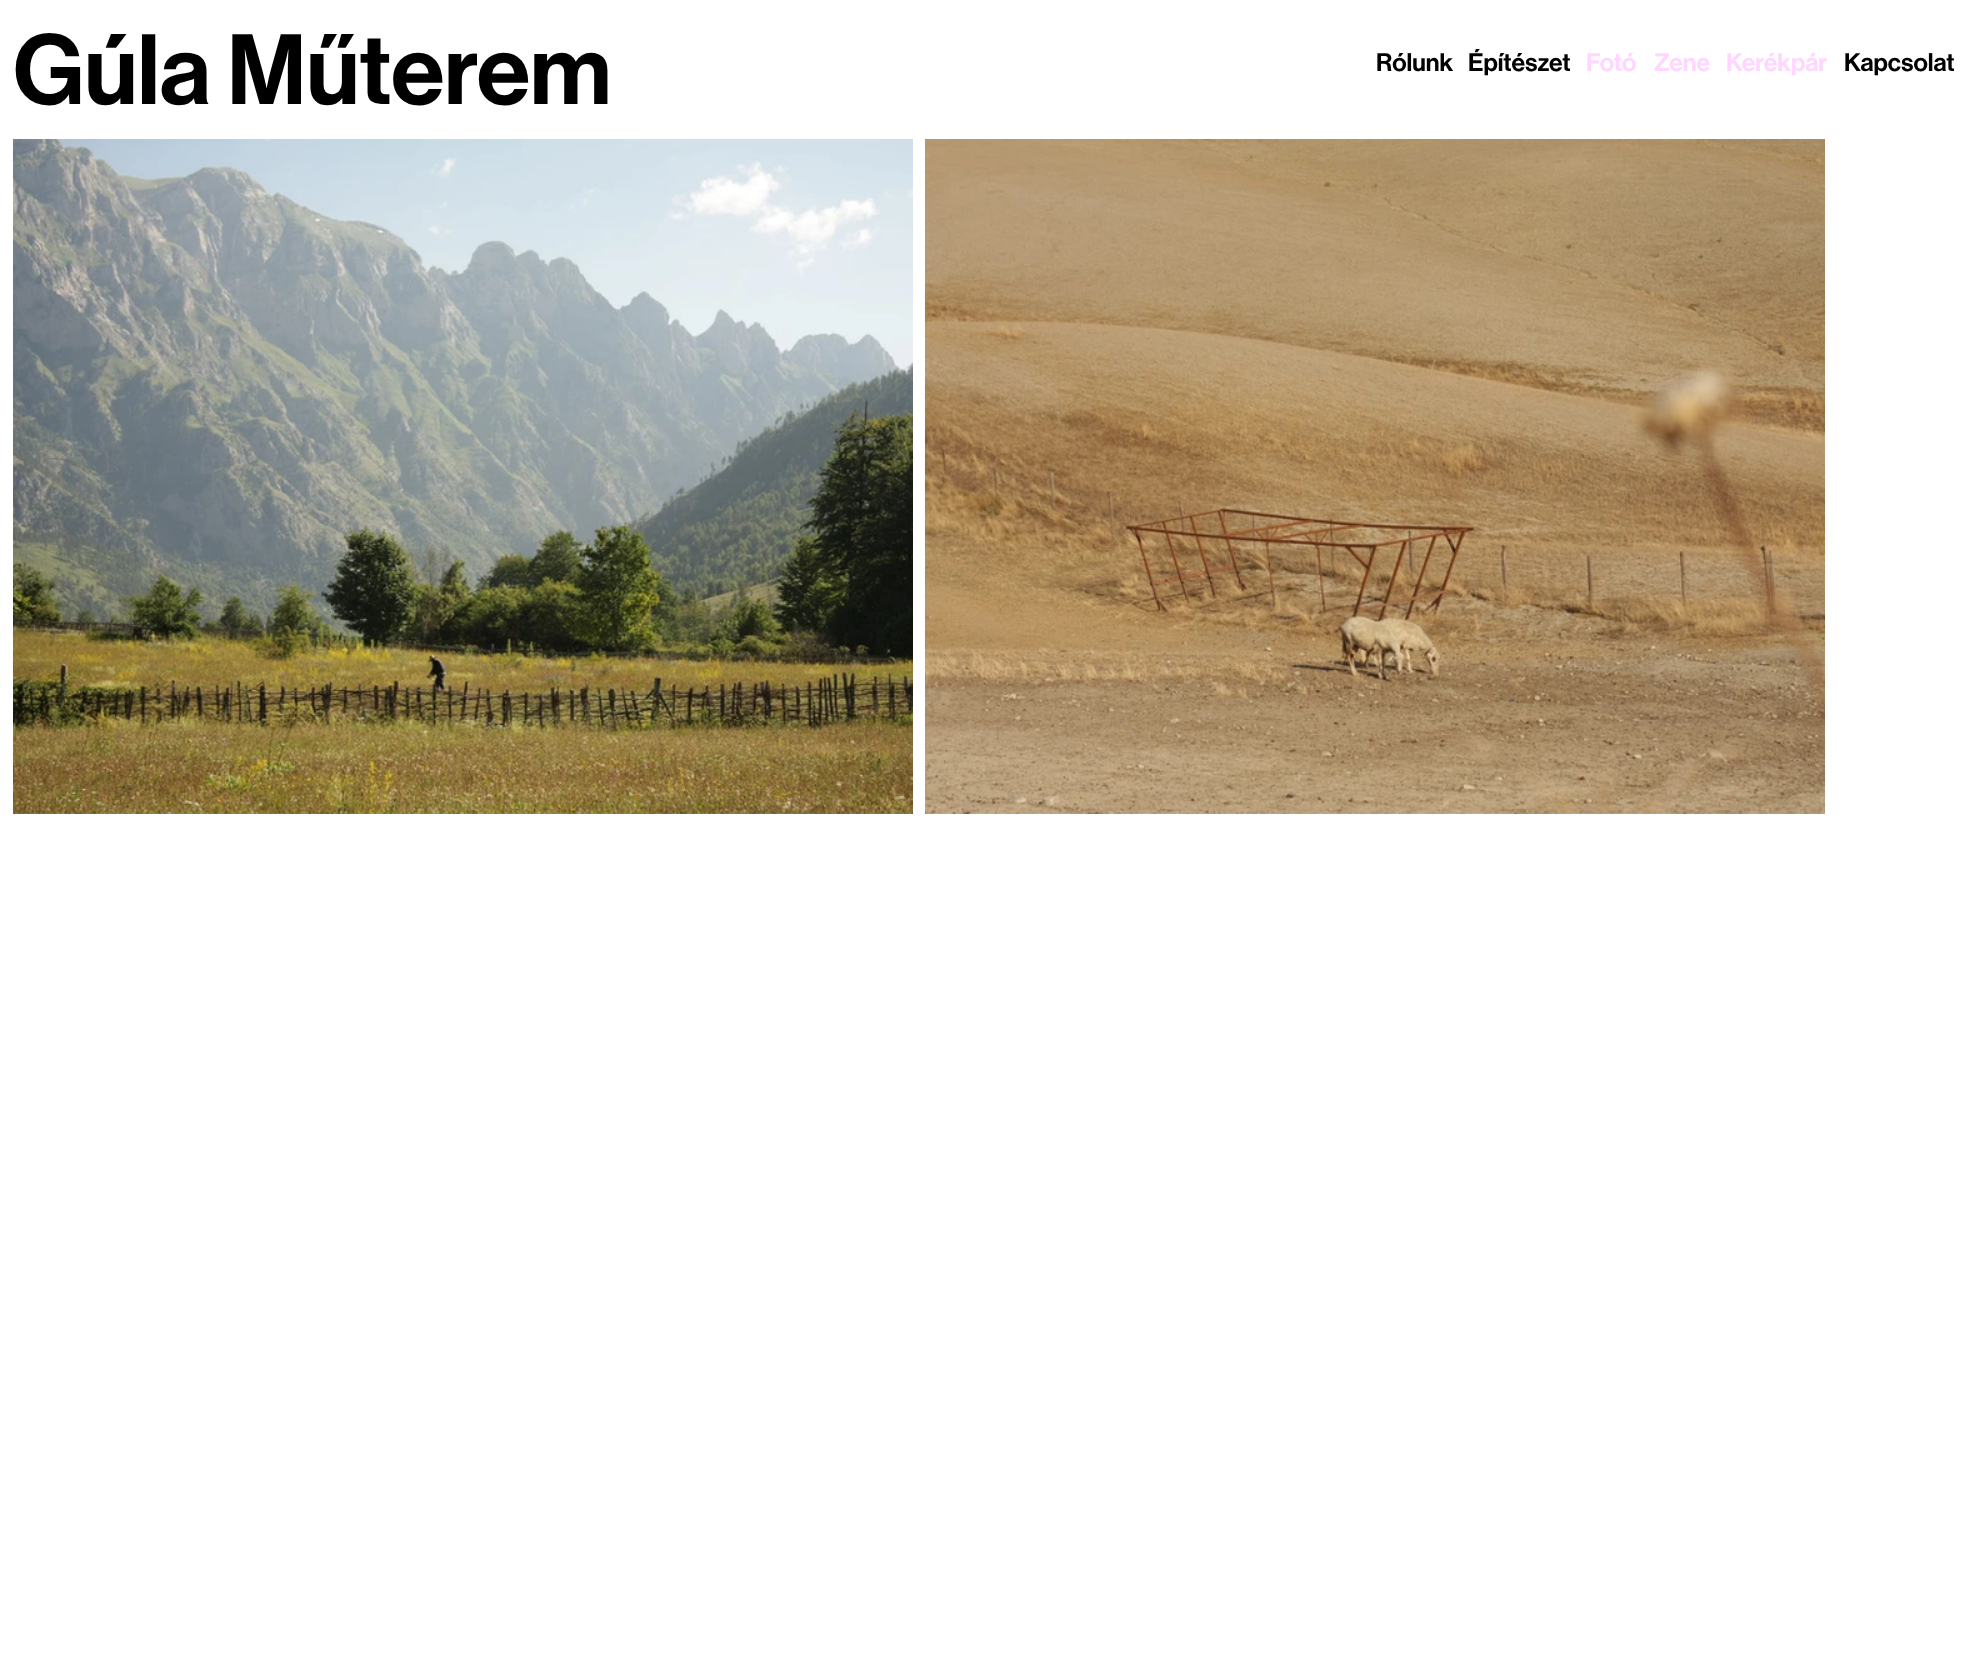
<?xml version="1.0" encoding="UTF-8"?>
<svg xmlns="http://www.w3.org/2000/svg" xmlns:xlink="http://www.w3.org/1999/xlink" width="1970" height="1678">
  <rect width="100%" height="100%" fill="#ffffff" />
  <image x="13" y="139" width="900" height="675" xlink:href="image1.png" />
  <image x="925" y="139" width="900" height="675" xlink:href="image2.png" />
  <text x="13" y="104" style="font-family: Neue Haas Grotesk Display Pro; font-size: 97.5px; font-weight: 600; fill: #000000">Gúla Műterem</text>
  <text x="1376" y="71" style="font-family: Neue Haas Grotesk Display Pro; font-size: 25px; font-weight: 600; fill: #000000">Rólunk</text>
  <text x="1468" y="71" style="font-family: Neue Haas Grotesk Display Pro; font-size: 25px; font-weight: 600; fill: #000000">Építészet</text>
  <text x="1586" y="71" style="font-family: Neue Haas Grotesk Display Pro; font-size: 25px; font-weight: 600; fill: #ffd6ff">Fotó</text>
  <text x="1654" y="71" style="font-family: Neue Haas Grotesk Display Pro; font-size: 25px; font-weight: 600; fill: #ffd6ff">Zene</text>
  <text x="1726" y="71" style="font-family: Neue Haas Grotesk Display Pro; font-size: 25px; font-weight: 600; fill: #ffd6ff">Kerékpár</text>
  <text x="1844" y="71" style="font-family: Neue Haas Grotesk Display Pro; font-size: 25px; font-weight: 600; fill: #000000">Kapcsolat</text>
</svg>
